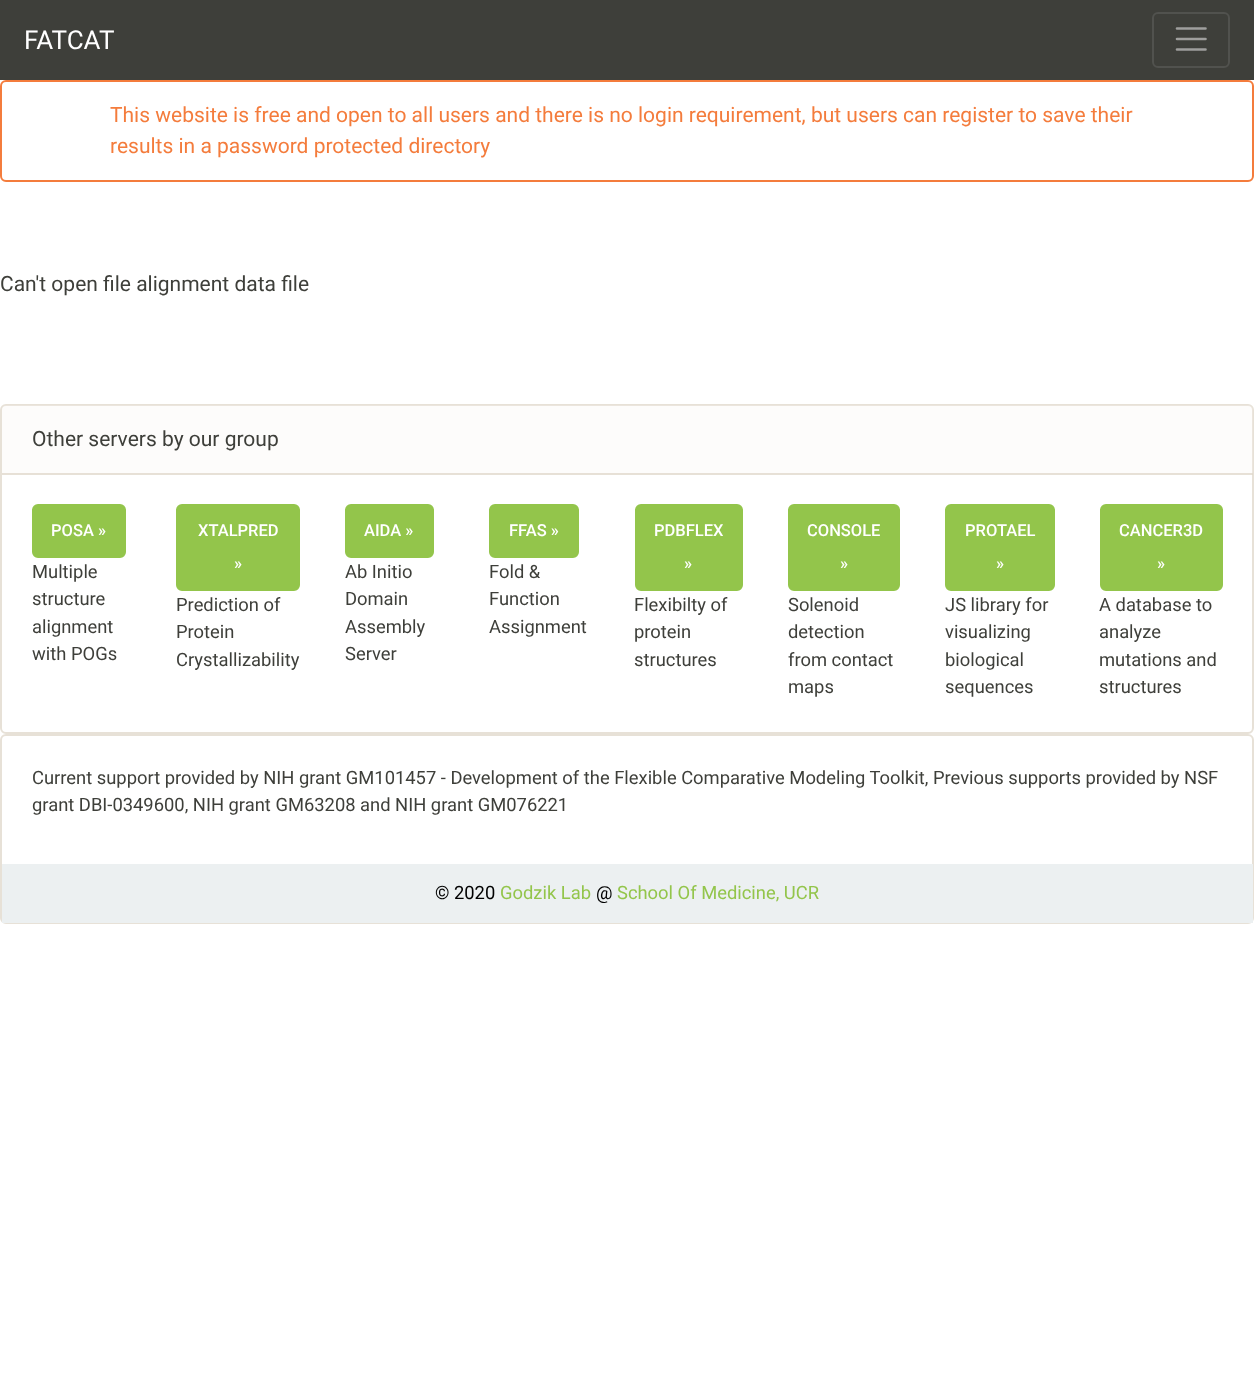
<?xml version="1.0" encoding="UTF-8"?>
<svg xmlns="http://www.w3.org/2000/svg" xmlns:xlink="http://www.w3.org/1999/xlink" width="1254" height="1374">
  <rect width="100%" height="100%" fill="#ffffff" />
  <rect width="1254" height="80" fill="#3e3f3a" />
  <rect x="1153" y="13" width="76" height="54" rx="5" fill="none" stroke="#51524e" stroke-width="2" />
  <path d="M 1177 28.5 h 28.5 m -28.5 10.5 h 28.5 m -28.5 10.5 h 28.5" fill="none" stroke="#9f9f9d" stroke-width="2.6" stroke-linecap="round" />
  <rect x="1" y="81" width="1252" height="100" rx="5" fill="none" stroke="#f47c3c" stroke-width="2" />
  <rect x="1" y="405" width="1252" height="328" rx="5" fill="none" stroke="#e7e1d7" stroke-width="2" />
  <path d="M 7 405 h 1241 c 3 0 5 2 5 5 v 64 h -1251 v -64 c 0 -3 2 -5 5 -5 z" fill="#f8f5f0" fill-opacity="0.25" />
  <rect x="2" y="473" width="1251" height="2" fill="#dfd7ca" fill-opacity="0.75" />
  <rect x="33" y="505" width="92" height="52" rx="5" fill="#93c54b" stroke="#93c54b" stroke-width="2" />
  <rect x="177" y="505" width="122" height="85" rx="5" fill="#93c54b" stroke="#93c54b" stroke-width="2" />
  <rect x="346" y="505" width="87" height="52" rx="5" fill="#93c54b" stroke="#93c54b" stroke-width="2" />
  <rect x="490" y="505" width="88" height="52" rx="5" fill="#93c54b" stroke="#93c54b" stroke-width="2" />
  <rect x="636" y="505" width="106" height="85" rx="5" fill="#93c54b" stroke="#93c54b" stroke-width="2" />
  <rect x="789" y="505" width="110" height="85" rx="5" fill="#93c54b" stroke="#93c54b" stroke-width="2" />
  <rect x="946" y="505" width="108" height="85" rx="5" fill="#93c54b" stroke="#93c54b" stroke-width="2" />
  <rect x="1101" y="505" width="121" height="85" rx="5" fill="#93c54b" stroke="#93c54b" stroke-width="2" />
  <rect x="1" y="735" width="1252" height="188" rx="5" fill="none" stroke="#e7e1d7" stroke-width="2" />
  <rect x="2" y="864" width="1251" height="59" fill="#ecf0f1" />
  <text x="24" y="49" style="font-family: Roboto; font-size: 26px; fill: #ffffff">FATCAT</text>
  <text x="110" y="122" style="font-family: Roboto; font-size: 21px; fill: #f47c3c">This website is free and open to all users and there is no login requirement, but users can register to save their</text>
  <text x="110" y="153" style="font-family: Roboto; font-size: 21px; fill: #f47c3c">results in a password protected directory</text>
  <text x="0" y="291" style="font-family: Roboto; font-size: 21px; fill: #3e3f3a">Can't open file alignment data file</text>
  <text x="32" y="446" style="font-family: Roboto; font-size: 21px; fill: #3e3f3a">Other servers by our group</text>
  <text x="51" y="536" style="font-family: Roboto; font-size: 16.5px; font-weight: 500; fill: #ffffff">POSA »</text>
  <text x="32" y="578" style="font-family: Roboto; font-size: 18.38px; fill: #3e3f3a">Multiple</text>
  <text x="32" y="605" style="font-family: Roboto; font-size: 18.38px; fill: #3e3f3a">structure</text>
  <text x="32" y="633" style="font-family: Roboto; font-size: 18.38px; fill: #3e3f3a">alignment</text>
  <text x="32" y="660" style="font-family: Roboto; font-size: 18.38px; fill: #3e3f3a">with POGs</text>
  <text x="198" y="536" style="font-family: Roboto; font-size: 16.5px; font-weight: 500; fill: #ffffff">XTALPRED</text>
  <text x="234" y="569" style="font-family: Roboto; font-size: 16.5px; font-weight: 500; fill: #ffffff">»</text>
  <text x="176" y="611" style="font-family: Roboto; font-size: 18.38px; fill: #3e3f3a">Prediction of</text>
  <text x="176" y="638" style="font-family: Roboto; font-size: 18.38px; fill: #3e3f3a">Protein</text>
  <text x="176" y="666" style="font-family: Roboto; font-size: 18.38px; fill: #3e3f3a">Crystallizability</text>
  <text x="364" y="536" style="font-family: Roboto; font-size: 16.5px; font-weight: 500; fill: #ffffff">AIDA »</text>
  <text x="345" y="578" style="font-family: Roboto; font-size: 18.38px; fill: #3e3f3a">Ab Initio</text>
  <text x="345" y="605" style="font-family: Roboto; font-size: 18.38px; fill: #3e3f3a">Domain</text>
  <text x="345" y="633" style="font-family: Roboto; font-size: 18.38px; fill: #3e3f3a">Assembly</text>
  <text x="345" y="660" style="font-family: Roboto; font-size: 18.38px; fill: #3e3f3a">Server</text>
  <text x="509" y="536" style="font-family: Roboto; font-size: 16.5px; font-weight: 500; fill: #ffffff">FFAS »</text>
  <text x="489" y="578" style="font-family: Roboto; font-size: 18.38px; fill: #3e3f3a">Fold &amp;</text>
  <text x="489" y="605" style="font-family: Roboto; font-size: 18.38px; fill: #3e3f3a">Function</text>
  <text x="489" y="633" style="font-family: Roboto; font-size: 18.38px; fill: #3e3f3a">Assignment</text>
  <text x="654" y="536" style="font-family: Roboto; font-size: 16.5px; font-weight: 500; fill: #ffffff">PDBFLEX</text>
  <text x="684" y="569" style="font-family: Roboto; font-size: 16.5px; font-weight: 500; fill: #ffffff">»</text>
  <text x="634" y="611" style="font-family: Roboto; font-size: 18.38px; fill: #3e3f3a">Flexibilty of</text>
  <text x="634" y="638" style="font-family: Roboto; font-size: 18.38px; fill: #3e3f3a">protein</text>
  <text x="634" y="666" style="font-family: Roboto; font-size: 18.38px; fill: #3e3f3a">structures</text>
  <text x="807" y="536" style="font-family: Roboto; font-size: 16.5px; font-weight: 500; fill: #ffffff">CONSOLE</text>
  <text x="840" y="569" style="font-family: Roboto; font-size: 16.5px; font-weight: 500; fill: #ffffff">»</text>
  <text x="788" y="611" style="font-family: Roboto; font-size: 18.38px; fill: #3e3f3a">Solenoid</text>
  <text x="788" y="638" style="font-family: Roboto; font-size: 18.38px; fill: #3e3f3a">detection</text>
  <text x="788" y="666" style="font-family: Roboto; font-size: 18.38px; fill: #3e3f3a">from contact</text>
  <text x="788" y="693" style="font-family: Roboto; font-size: 18.38px; fill: #3e3f3a">maps</text>
  <text x="965" y="536" style="font-family: Roboto; font-size: 16.5px; font-weight: 500; fill: #ffffff">PROTAEL</text>
  <text x="996" y="569" style="font-family: Roboto; font-size: 16.5px; font-weight: 500; fill: #ffffff">»</text>
  <text x="945" y="611" style="font-family: Roboto; font-size: 18.38px; fill: #3e3f3a">JS library for</text>
  <text x="945" y="638" style="font-family: Roboto; font-size: 18.38px; fill: #3e3f3a">visualizing</text>
  <text x="945" y="666" style="font-family: Roboto; font-size: 18.38px; fill: #3e3f3a">biological</text>
  <text x="945" y="693" style="font-family: Roboto; font-size: 18.38px; fill: #3e3f3a">sequences</text>
  <text x="1119" y="536" style="font-family: Roboto; font-size: 16.5px; font-weight: 500; fill: #ffffff">CANCER3D</text>
  <text x="1157" y="569" style="font-family: Roboto; font-size: 16.5px; font-weight: 500; fill: #ffffff">»</text>
  <text x="1099" y="611" style="font-family: Roboto; font-size: 18.38px; fill: #3e3f3a">A database to</text>
  <text x="1099" y="638" style="font-family: Roboto; font-size: 18.38px; fill: #3e3f3a">analyze</text>
  <text x="1099" y="666" style="font-family: Roboto; font-size: 18.38px; fill: #3e3f3a">mutations and</text>
  <text x="1099" y="693" style="font-family: Roboto; font-size: 18.38px; fill: #3e3f3a">structures</text>
  <text x="32" y="784" style="font-family: Roboto; font-size: 18.38px; fill: #3e3f3a">Current support provided by NIH grant GM101457 - Development of the Flexible Comparative Modeling Toolkit, Previous supports provided by NSF</text>
  <text x="32" y="811" style="font-family: Roboto; font-size: 18.38px; fill: #3e3f3a">grant DBI-0349600, NIH grant GM63208 and NIH grant GM076221</text>
  <text x="435" y="899" style="font-family: Roboto; font-size: 18.38px; fill: #000000">© 2020</text>
  <text x="500" y="899" style="font-family: Roboto; font-size: 18.38px; fill: #93c54b">Godzik Lab</text>
  <text x="596" y="899" style="font-family: Roboto; font-size: 18.38px; fill: #000000">@</text>
  <text x="617" y="899" style="font-family: Roboto; font-size: 18.38px; fill: #93c54b">School Of Medicine, UCR</text>
</svg>
